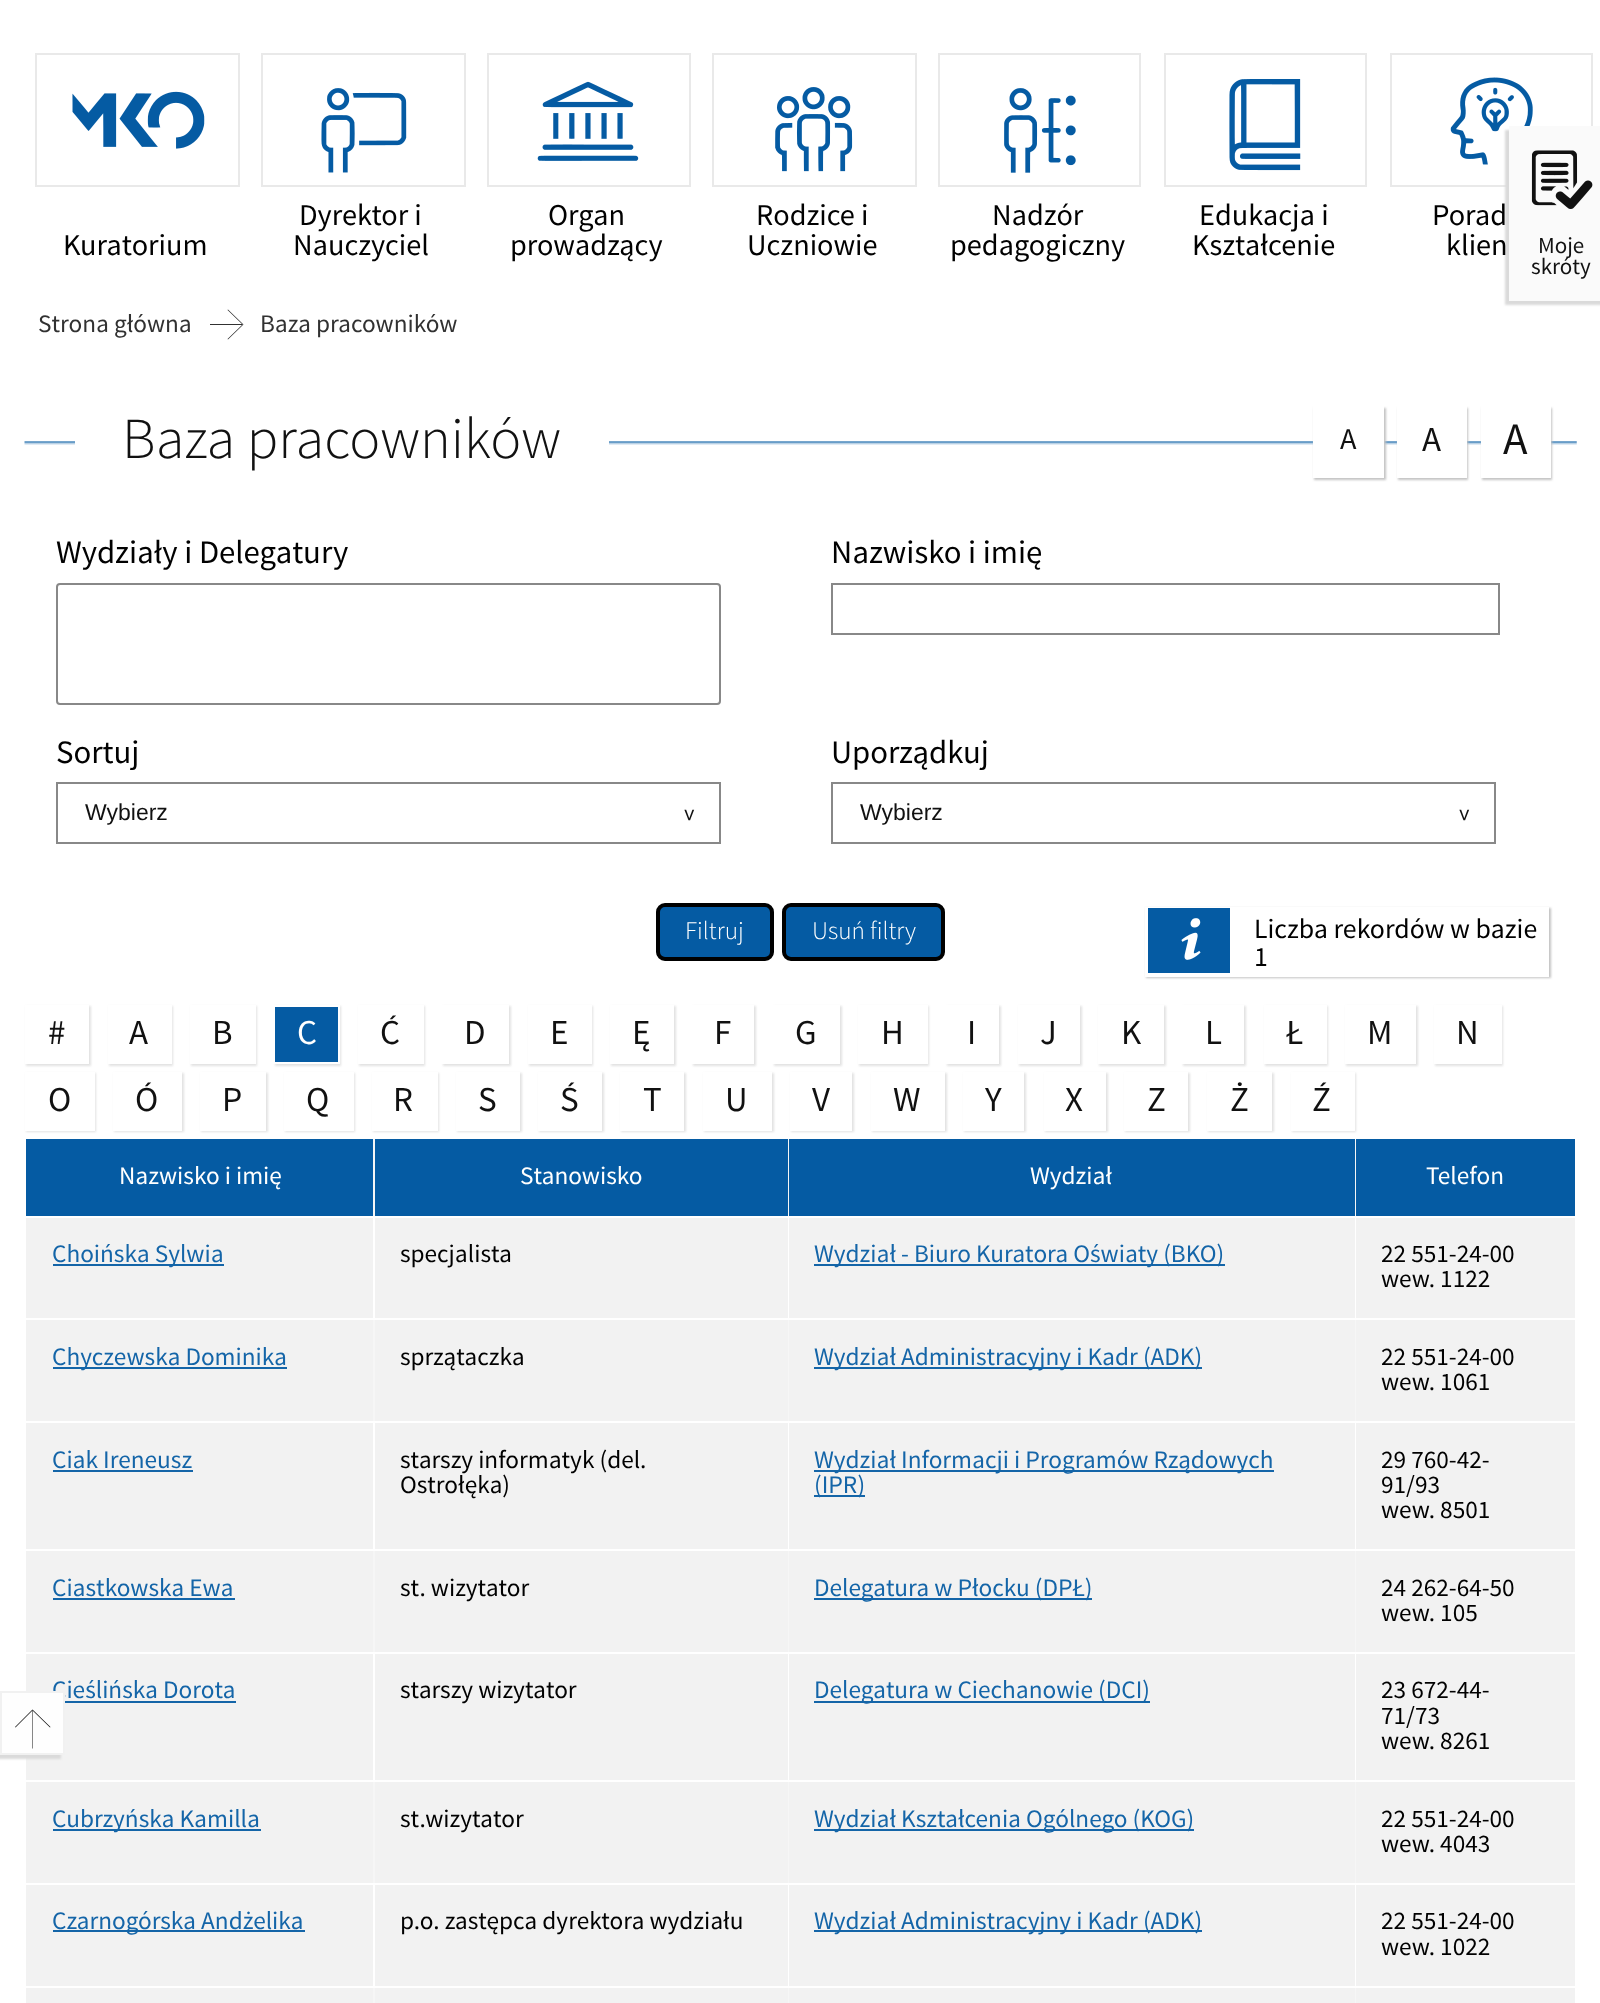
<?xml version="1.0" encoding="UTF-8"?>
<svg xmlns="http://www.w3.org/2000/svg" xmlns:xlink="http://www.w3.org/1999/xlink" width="1600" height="2003">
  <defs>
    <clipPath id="clip1"><path d="M 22 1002 h 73 v 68 h -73 z m 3 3 h 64 v 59 h -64 z" clip-rule="evenodd" /></clipPath>
    <clipPath id="clip2"><path d="M 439 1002 h 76 v 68 h -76 z m 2 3 h 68 v 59 h -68 z" clip-rule="evenodd" /></clipPath>
    <clipPath id="clip3"><path d="M 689 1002 h 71 v 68 h -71 z m 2 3 h 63 v 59 h -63 z" clip-rule="evenodd" /></clipPath>
    <clipPath id="clip4"><path d="M 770 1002 h 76 v 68 h -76 z m 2 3 h 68 v 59 h -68 z" clip-rule="evenodd" /></clipPath>
    <clipPath id="clip5"><path d="M 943 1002 h 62 v 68 h -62 z m 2 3 h 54 v 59 h -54 z" clip-rule="evenodd" /></clipPath>
    <clipPath id="clip6"><path d="M 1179 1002 h 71 v 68 h -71 z m 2 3 h 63 v 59 h -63 z" clip-rule="evenodd" /></clipPath>
  </defs>
  <rect width="100%" height="100%" fill="#ffffff" />
  <rect x="36" y="54" width="203" height="132" fill="none" stroke="#e9e9e9" stroke-width="2" />
  <image x="72" y="91" width="133" height="58" xlink:href="image1.png" />
  <rect x="262" y="54" width="203" height="132" fill="none" stroke="#e9e9e9" stroke-width="2" />
  <image x="321" y="88" width="86" height="85" xlink:href="image2.png" />
  <rect x="488" y="54" width="202" height="132" fill="none" stroke="#e9e9e9" stroke-width="2" />
  <image x="537" y="81" width="102" height="80" xlink:href="image3.png" />
  <rect x="713" y="54" width="203" height="132" fill="none" stroke="#e9e9e9" stroke-width="2" />
  <image x="775" y="87" width="78" height="85" xlink:href="image4.png" />
  <rect x="939" y="54" width="201" height="132" fill="none" stroke="#e9e9e9" stroke-width="2" />
  <image x="1004" y="88" width="72" height="85" xlink:href="image5.png" />
  <rect x="1165" y="54" width="201" height="132" fill="none" stroke="#e9e9e9" stroke-width="2" />
  <image x="1229" y="79" width="72" height="92" xlink:href="image6.png" />
  <rect x="1391" y="54" width="201" height="132" fill="none" stroke="#e9e9e9" stroke-width="2" />
  <image x="1450" y="77" width="83" height="88" xlink:href="image7.png" />
  <path d="M 243.5 324.5 l -15.5 15 l -0.5 -0.5 l 15 -14.5 l -15 -14.5 l 0.5 -0.5 z m -1.5 -0.5 h -32 v 1 h 32 z" fill="#313131" />
  <image x="24" y="441" width="1553" height="4" xlink:href="image8.png" />
  <rect x="75" y="441" width="534" height="4" fill="#ffffff" />
  <rect x="1314" y="408" width="72" height="72" fill="#c3c3c3" filter="blur(1px)" />
  <rect x="1313" y="406" width="71" height="72" fill="#ffffff" />
  <rect x="1398" y="408" width="70" height="72" fill="#c3c3c3" filter="blur(1px)" />
  <rect x="1397" y="406" width="70" height="72" fill="#ffffff" />
  <rect x="1482" y="408" width="70" height="72" fill="#c3c3c3" filter="blur(1px)" />
  <rect x="1481" y="406" width="70" height="72" fill="#ffffff" />
  <rect x="57" y="584" width="663" height="120" rx="3" fill="none" stroke="#888888" stroke-width="2" />
  <rect x="832" y="584" width="667" height="50" fill="none" stroke="#888888" stroke-width="2" />
  <rect x="57" y="783" width="663" height="60" fill="none" stroke="#888888" stroke-width="2" />
  <rect x="832" y="783" width="663" height="60" fill="none" stroke="#888888" stroke-width="2" />
  <rect x="658" y="905" width="114" height="54" rx="7" fill="#055ba3" stroke="#000000" stroke-width="4" />
  <rect x="784" y="905" width="159" height="54" rx="7" fill="#055ba3" stroke="#000000" stroke-width="4" />
  <rect x="1146" y="908" width="405" height="70" fill="#c3c3c3" filter="blur(1px)" />
  <rect x="1145" y="907" width="404" height="70" fill="#ffffff" />
  <rect x="1148" y="908" width="82" height="65" fill="#055ba3" />
  <image x="1181" y="918" width="20" height="42" xlink:href="image9.png" />
  <g clip-path="url(#clip1)">
    <rect x="26" y="1006" width="65" height="60" fill="#e2e2e2" filter="blur(1px)" />
  </g>
  <rect x="109" y="1006" width="64" height="60" fill="#e2e2e2" filter="blur(1px)" />
  <rect x="108" y="1005" width="64" height="59" fill="#ffffff" />
  <rect x="191" y="1006" width="66" height="60" fill="#e2e2e2" filter="blur(1px)" />
  <rect x="190" y="1005" width="66" height="59" fill="#ffffff" />
  <rect x="275" y="1006" width="66" height="60" fill="#e2e2e2" filter="blur(1px)" />
  <rect x="274" y="1006" width="65" height="57" fill="#055ba3" stroke="#ffffff" stroke-width="2" />
  <rect x="359" y="1006" width="66" height="60" fill="#e2e2e2" filter="blur(1px)" />
  <rect x="358" y="1005" width="66" height="59" fill="#ffffff" />
  <g clip-path="url(#clip2)">
    <rect x="443" y="1006" width="68" height="60" fill="#e2e2e2" filter="blur(1px)" />
  </g>
  <rect x="529" y="1006" width="64" height="60" fill="#e2e2e2" filter="blur(1px)" />
  <rect x="528" y="1005" width="64" height="59" fill="#ffffff" />
  <rect x="611" y="1006" width="65" height="60" fill="#e2e2e2" filter="blur(1px)" />
  <rect x="610" y="1005" width="64" height="59" fill="#ffffff" />
  <g clip-path="url(#clip3)">
    <rect x="693" y="1006" width="63" height="60" fill="#e2e2e2" filter="blur(1px)" />
  </g>
  <g clip-path="url(#clip4)">
    <rect x="774" y="1006" width="68" height="60" fill="#e2e2e2" filter="blur(1px)" />
  </g>
  <rect x="859" y="1006" width="70" height="60" fill="#e2e2e2" filter="blur(1px)" />
  <rect x="858" y="1005" width="70" height="59" fill="#ffffff" />
  <g clip-path="url(#clip5)">
    <rect x="947" y="1006" width="54" height="60" fill="#e2e2e2" filter="blur(1px)" />
  </g>
  <rect x="1019" y="1006" width="63" height="60" fill="#e2e2e2" filter="blur(1px)" />
  <rect x="1018" y="1005" width="62" height="59" fill="#ffffff" />
  <rect x="1099" y="1006" width="67" height="60" fill="#e2e2e2" filter="blur(1px)" />
  <rect x="1098" y="1005" width="66" height="59" fill="#ffffff" />
  <g clip-path="url(#clip6)">
    <rect x="1183" y="1006" width="63" height="60" fill="#e2e2e2" filter="blur(1px)" />
  </g>
  <rect x="1265" y="1006" width="63" height="60" fill="#e2e2e2" filter="blur(1px)" />
  <rect x="1264" y="1005" width="63" height="59" fill="#ffffff" />
  <rect x="1346" y="1006" width="72" height="60" fill="#e2e2e2" filter="blur(1px)" />
  <rect x="1345" y="1005" width="71" height="59" fill="#ffffff" />
  <rect x="1435" y="1006" width="68" height="60" fill="#e2e2e2" filter="blur(1px)" />
  <rect x="1434" y="1005" width="68" height="59" fill="#ffffff" />
  <rect x="26" y="1073" width="70" height="59" fill="#e2e2e2" filter="blur(1px)" />
  <rect x="25" y="1072" width="70" height="59" fill="#ffffff" />
  <rect x="114" y="1073" width="70" height="59" fill="#e2e2e2" filter="blur(1px)" />
  <rect x="113" y="1072" width="69" height="59" fill="#ffffff" />
  <rect x="201" y="1073" width="67" height="59" fill="#e2e2e2" filter="blur(1px)" />
  <rect x="200" y="1072" width="66" height="59" fill="#ffffff" />
  <rect x="285" y="1073" width="70" height="59" fill="#e2e2e2" filter="blur(1px)" />
  <rect x="284" y="1072" width="70" height="59" fill="#ffffff" />
  <rect x="373" y="1073" width="66" height="59" fill="#e2e2e2" filter="blur(1px)" />
  <rect x="372" y="1072" width="66" height="59" fill="#ffffff" />
  <rect x="457" y="1073" width="65" height="59" fill="#e2e2e2" filter="blur(1px)" />
  <rect x="456" y="1072" width="64" height="59" fill="#ffffff" />
  <rect x="539" y="1073" width="65" height="59" fill="#e2e2e2" filter="blur(1px)" />
  <rect x="538" y="1072" width="64" height="59" fill="#ffffff" />
  <rect x="621" y="1073" width="65" height="59" fill="#e2e2e2" filter="blur(1px)" />
  <rect x="620" y="1072" width="64" height="59" fill="#ffffff" />
  <rect x="704" y="1073" width="70" height="59" fill="#e2e2e2" filter="blur(1px)" />
  <rect x="703" y="1072" width="69" height="59" fill="#ffffff" />
  <rect x="791" y="1073" width="63" height="59" fill="#e2e2e2" filter="blur(1px)" />
  <rect x="790" y="1072" width="62" height="59" fill="#ffffff" />
  <rect x="872" y="1073" width="75" height="59" fill="#e2e2e2" filter="blur(1px)" />
  <rect x="871" y="1072" width="74" height="59" fill="#ffffff" />
  <rect x="964" y="1073" width="62" height="59" fill="#e2e2e2" filter="blur(1px)" />
  <rect x="963" y="1072" width="61" height="59" fill="#ffffff" />
  <rect x="1045" y="1073" width="63" height="59" fill="#e2e2e2" filter="blur(1px)" />
  <rect x="1044" y="1072" width="62" height="59" fill="#ffffff" />
  <rect x="1125" y="1073" width="65" height="59" fill="#e2e2e2" filter="blur(1px)" />
  <rect x="1124" y="1072" width="64" height="59" fill="#ffffff" />
  <rect x="1208" y="1073" width="66" height="59" fill="#e2e2e2" filter="blur(1px)" />
  <rect x="1207" y="1072" width="65" height="59" fill="#ffffff" />
  <rect x="1292" y="1073" width="64" height="59" fill="#e2e2e2" filter="blur(1px)" />
  <rect x="1291" y="1072" width="64" height="59" fill="#ffffff" />
  <rect x="373" y="1139" width="983" height="77" fill="#f6f6f6" />
  <rect x="26" y="1139" width="347" height="77" fill="#055ba3" />
  <rect x="375" y="1139" width="413" height="77" fill="#055ba3" />
  <rect x="789" y="1139" width="566" height="77" fill="#055ba3" />
  <rect x="1356" y="1139" width="219" height="77" fill="#055ba3" />
  <rect x="26" y="1218" width="347" height="100" fill="#f2f2f2" />
  <rect x="53" y="1264" width="171" height="2" fill="#1465a8" />
  <rect x="375" y="1218" width="413" height="100" fill="#f2f2f2" />
  <rect x="789" y="1218" width="566" height="100" fill="#f2f2f2" />
  <rect x="814" y="1264" width="411" height="2" fill="#1465a8" />
  <rect x="1356" y="1218" width="219" height="100" fill="#f2f2f2" />
  <rect x="373" y="1320" width="983" height="101" fill="#f6f6f6" />
  <rect x="26" y="1320" width="347" height="101" fill="#f2f2f2" />
  <rect x="53" y="1367" width="234" height="2" fill="#1465a8" />
  <rect x="375" y="1320" width="413" height="101" fill="#f2f2f2" />
  <rect x="789" y="1320" width="566" height="101" fill="#f2f2f2" />
  <rect x="814" y="1367" width="388" height="2" fill="#1465a8" />
  <rect x="1356" y="1320" width="219" height="101" fill="#f2f2f2" />
  <rect x="26" y="1423" width="347" height="126" fill="#f2f2f2" />
  <rect x="53" y="1470" width="140" height="2" fill="#1465a8" />
  <rect x="375" y="1423" width="413" height="126" fill="#f2f2f2" />
  <rect x="789" y="1423" width="566" height="126" fill="#f2f2f2" />
  <rect x="814" y="1470" width="460" height="2" fill="#1465a8" />
  <rect x="814" y="1495" width="51" height="2" fill="#1465a8" />
  <rect x="1356" y="1423" width="219" height="126" fill="#f2f2f2" />
  <rect x="373" y="1551" width="983" height="101" fill="#f6f6f6" />
  <rect x="26" y="1551" width="347" height="101" fill="#f2f2f2" />
  <rect x="53" y="1598" width="182" height="2" fill="#1465a8" />
  <rect x="375" y="1551" width="413" height="101" fill="#f2f2f2" />
  <rect x="789" y="1551" width="566" height="101" fill="#f2f2f2" />
  <rect x="814" y="1598" width="278" height="2" fill="#1465a8" />
  <rect x="1356" y="1551" width="219" height="101" fill="#f2f2f2" />
  <rect x="26" y="1654" width="347" height="126" fill="#f2f2f2" />
  <rect x="65" y="1701" width="171" height="2" fill="#1465a8" />
  <rect x="375" y="1654" width="413" height="126" fill="#f2f2f2" />
  <rect x="789" y="1654" width="566" height="126" fill="#f2f2f2" />
  <rect x="814" y="1701" width="336" height="2" fill="#1465a8" />
  <rect x="1356" y="1654" width="219" height="126" fill="#f2f2f2" />
  <rect x="373" y="1782" width="983" height="101" fill="#f6f6f6" />
  <rect x="26" y="1782" width="347" height="101" fill="#f2f2f2" />
  <rect x="53" y="1829" width="208" height="2" fill="#1465a8" />
  <rect x="375" y="1782" width="413" height="101" fill="#f2f2f2" />
  <rect x="789" y="1782" width="566" height="101" fill="#f2f2f2" />
  <rect x="814" y="1829" width="380" height="2" fill="#1465a8" />
  <rect x="1356" y="1782" width="219" height="101" fill="#f2f2f2" />
  <rect x="26" y="1885" width="347" height="101" fill="#f2f2f2" />
  <rect x="53" y="1930" width="252" height="2" fill="#1465a8" />
  <rect x="375" y="1885" width="413" height="101" fill="#f2f2f2" />
  <rect x="789" y="1885" width="566" height="101" fill="#f2f2f2" />
  <rect x="814" y="1930" width="388" height="2" fill="#1465a8" />
  <rect x="1356" y="1885" width="219" height="101" fill="#f2f2f2" />
  <rect x="373" y="1988" width="983" height="15" fill="#f6f6f6" />
  <rect x="26" y="1988" width="347" height="15" fill="#f2f2f2" />
  <rect x="375" y="1988" width="413" height="15" fill="#f2f2f2" />
  <rect x="789" y="1988" width="566" height="15" fill="#f2f2f2" />
  <rect x="1356" y="1988" width="219" height="15" fill="#f2f2f2" />
  <rect x="1505" y="130" width="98" height="175" fill="#dadada" filter="blur(1px)" />
  <rect x="1509" y="126" width="91" height="175" fill="#fafafa" />
  <image x="1531" y="150" width="62" height="59" xlink:href="image10.png" />
  <rect x="-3" y="1694" width="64" height="65" fill="#dadada" filter="blur(1px)" />
  <text x="63" y="255" style="font-family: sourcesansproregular; font-size: 30.25px; fill: #010101">Kuratorium</text>
  <text x="299" y="225" style="font-family: sourcesansproregular; font-size: 30.25px; fill: #010101">Dyrektor i</text>
  <text x="293" y="255" style="font-family: sourcesansproregular; font-size: 30.25px; fill: #010101">Nauczyciel</text>
  <text x="548" y="225" style="font-family: sourcesansproregular; font-size: 30.25px; fill: #010101">Organ</text>
  <text x="510" y="255" style="font-family: sourcesansproregular; font-size: 30.25px; fill: #010101">prowadzący</text>
  <text x="756" y="225" style="font-family: sourcesansproregular; font-size: 30.25px; fill: #010101">Rodzice i</text>
  <text x="747" y="255" style="font-family: sourcesansproregular; font-size: 30.25px; fill: #010101">Uczniowie</text>
  <text x="992" y="225" style="font-family: sourcesansproregular; font-size: 30.25px; fill: #010101">Nadzór</text>
  <text x="950" y="255" style="font-family: sourcesansproregular; font-size: 30.25px; fill: #010101">pedagogiczny</text>
  <text x="1199" y="225" style="font-family: sourcesansproregular; font-size: 30.25px; fill: #010101">Edukacja i</text>
  <text x="1192" y="255" style="font-family: sourcesansproregular; font-size: 30.25px; fill: #010101">Kształcenie</text>
  <text x="1432" y="225" style="font-family: sourcesansproregular; font-size: 30.25px; fill: #010101">Porad</text>
  <text x="1446" y="255" style="font-family: sourcesansproregular; font-size: 30.25px; fill: #010101">klien</text>
  <text x="38" y="332" style="font-family: sourcesansproregular; font-size: 25.25px; fill: #313131">Strona główna</text>
  <text x="260" y="332" style="font-family: sourcesansproregular; font-size: 25.25px; fill: #313131">Baza pracowników</text>
  <text x="122" y="458" style="font-family: Source Sans Pro; font-size: 58px; font-weight: 300; fill: #111111">Baza pracowników</text>
  <text x="1340" y="449" style="font-family: sourcesansproregular; font-size: 30.25px; fill: #111111">A</text>
  <text x="1422" y="451" style="font-family: sourcesansproregular; font-size: 35px; fill: #111111">A</text>
  <text x="1503" y="454" style="font-family: sourcesansproregular; font-size: 45px; fill: #111111">A</text>
  <text x="56" y="563" style="font-family: sourcesansproregular; font-size: 32.75px; fill: #010101">Wydziały i Delegatury</text>
  <text x="831" y="563" style="font-family: sourcesansproregular; font-size: 32.75px; fill: #010101">Nazwisko i imię</text>
  <text x="56" y="763" style="font-family: sourcesansproregular; font-size: 32.75px; fill: #010101">Sortuj</text>
  <text x="85" y="820" style="font-family: Liberation Sans; font-size: 23px; fill: #111111">Wybierz</text>
  <text x="683" y="809" transform="rotate(90 683 809)" style="font-family: DejaVu Sans Mono; font-size: 20px; fill: #111111">&gt;</text>
  <text x="831" y="763" style="font-family: sourcesansproregular; font-size: 32.75px; fill: #010101">Uporządkuj</text>
  <text x="860" y="820" style="font-family: Liberation Sans; font-size: 23px; fill: #111111">Wybierz</text>
  <text x="1458" y="809" transform="rotate(90 1458 809)" style="font-family: DejaVu Sans Mono; font-size: 20px; fill: #111111">&gt;</text>
  <text x="685" y="939" style="font-family: Source Sans Pro; font-size: 25.25px; font-weight: 300; fill: #ffffff">Filtruj</text>
  <text x="812" y="939" style="font-family: Source Sans Pro; font-size: 25.25px; font-weight: 300; fill: #ffffff">Usuń filtry</text>
  <text x="1254" y="938" style="font-family: sourcesansproregular; font-size: 27.75px; fill: #010101">Liczba rekordów w bazie</text>
  <text x="1254" y="966" style="font-family: sourcesansproregular; font-size: 27.75px; fill: #010101">1</text>
  <text x="48" y="1044" style="font-family: sourcesansproregular; font-size: 35px; fill: #111111">#</text>
  <text x="129" y="1044" style="font-family: sourcesansproregular; font-size: 35px; fill: #111111">A</text>
  <text x="212" y="1044" style="font-family: sourcesansproregular; font-size: 35px; fill: #111111">B</text>
  <text x="297" y="1044" style="font-family: sourcesansproregular; font-size: 35px; fill: #ffffff">C</text>
  <text x="380" y="1044" style="font-family: sourcesansproregular; font-size: 35px; fill: #111111">Ć</text>
  <text x="464" y="1044" style="font-family: sourcesansproregular; font-size: 35px; fill: #111111">D</text>
  <text x="550" y="1044" style="font-family: sourcesansproregular; font-size: 35px; fill: #111111">E</text>
  <text x="632" y="1044" style="font-family: sourcesansproregular; font-size: 35px; fill: #111111">Ę</text>
  <text x="714" y="1044" style="font-family: sourcesansproregular; font-size: 35px; fill: #111111">F</text>
  <text x="795" y="1044" style="font-family: sourcesansproregular; font-size: 35px; fill: #111111">G</text>
  <text x="881" y="1044" style="font-family: sourcesansproregular; font-size: 35px; fill: #111111">H</text>
  <text x="967" y="1044" style="font-family: sourcesansproregular; font-size: 35px; fill: #111111">I</text>
  <text x="1040" y="1044" style="font-family: sourcesansproregular; font-size: 35px; fill: #111111">J</text>
  <text x="1121" y="1044" style="font-family: sourcesansproregular; font-size: 35px; fill: #111111">K</text>
  <text x="1205" y="1044" style="font-family: sourcesansproregular; font-size: 35px; fill: #111111">L</text>
  <text x="1286" y="1044" style="font-family: sourcesansproregular; font-size: 35px; fill: #111111">Ł</text>
  <text x="1367" y="1044" style="font-family: sourcesansproregular; font-size: 35px; fill: #111111">M</text>
  <text x="1456" y="1044" style="font-family: sourcesansproregular; font-size: 35px; fill: #111111">N</text>
  <text x="48" y="1111" style="font-family: sourcesansproregular; font-size: 35px; fill: #111111">O</text>
  <text x="135" y="1111" style="font-family: sourcesansproregular; font-size: 35px; fill: #111111">Ó</text>
  <text x="222" y="1111" style="font-family: sourcesansproregular; font-size: 35px; fill: #111111">P</text>
  <text x="306" y="1111" style="font-family: sourcesansproregular; font-size: 35px; fill: #111111">Q</text>
  <text x="393" y="1111" style="font-family: sourcesansproregular; font-size: 35px; fill: #111111">R</text>
  <text x="478" y="1111" style="font-family: sourcesansproregular; font-size: 35px; fill: #111111">S</text>
  <text x="560" y="1111" style="font-family: sourcesansproregular; font-size: 35px; fill: #111111">Ś</text>
  <text x="643" y="1111" style="font-family: sourcesansproregular; font-size: 35px; fill: #111111">T</text>
  <text x="725" y="1111" style="font-family: sourcesansproregular; font-size: 35px; fill: #111111">U</text>
  <text x="812" y="1111" style="font-family: sourcesansproregular; font-size: 35px; fill: #111111">V</text>
  <text x="893" y="1111" style="font-family: sourcesansproregular; font-size: 35px; fill: #111111">W</text>
  <text x="985" y="1111" style="font-family: sourcesansproregular; font-size: 35px; fill: #111111">Y</text>
  <text x="1065" y="1111" style="font-family: sourcesansproregular; font-size: 35px; fill: #111111">X</text>
  <text x="1147" y="1111" style="font-family: sourcesansproregular; font-size: 35px; fill: #111111">Z</text>
  <text x="1230" y="1111" style="font-family: sourcesansproregular; font-size: 35px; fill: #111111">Ż</text>
  <text x="1312" y="1111" style="font-family: sourcesansproregular; font-size: 35px; fill: #111111">Ź</text>
  <text x="119" y="1184" style="font-family: sourcesansproregular; font-size: 25.25px; fill: #ffffff">Nazwisko i imię</text>
  <text x="520" y="1184" style="font-family: sourcesansproregular; font-size: 25.25px; fill: #ffffff">Stanowisko</text>
  <text x="1030" y="1184" style="font-family: sourcesansproregular; font-size: 25.25px; fill: #ffffff">Wydział</text>
  <text x="1426" y="1184" style="font-family: sourcesansproregular; font-size: 25.25px; fill: #ffffff">Telefon</text>
  <text x="52" y="1262" style="font-family: sourcesansproregular; font-size: 25.25px; fill: #1465a8">Choińska Sylwia</text>
  <text x="400" y="1262" style="font-family: sourcesansproregular; font-size: 25.25px; fill: #010101">specjalista</text>
  <text x="814" y="1262" style="font-family: sourcesansproregular; font-size: 25.25px; fill: #1465a8">Wydział - Biuro Kuratora Oświaty (BKO)</text>
  <text x="1381" y="1262" style="font-family: sourcesansproregular; font-size: 25.25px; fill: #010101">22 551-24-00</text>
  <text x="1381" y="1287" style="font-family: sourcesansproregular; font-size: 25.25px; fill: #010101">wew. 1122</text>
  <text x="52" y="1365" style="font-family: sourcesansproregular; font-size: 25.25px; fill: #1465a8">Chyczewska Dominika</text>
  <text x="400" y="1365" style="font-family: sourcesansproregular; font-size: 25.25px; fill: #010101">sprzątaczka</text>
  <text x="814" y="1365" style="font-family: sourcesansproregular; font-size: 25.25px; fill: #1465a8">Wydział Administracyjny i Kadr (ADK)</text>
  <text x="1381" y="1365" style="font-family: sourcesansproregular; font-size: 25.25px; fill: #010101">22 551-24-00</text>
  <text x="1381" y="1390" style="font-family: sourcesansproregular; font-size: 25.25px; fill: #010101">wew. 1061</text>
  <text x="52" y="1468" style="font-family: sourcesansproregular; font-size: 25.25px; fill: #1465a8">Ciak Ireneusz</text>
  <text x="400" y="1468" style="font-family: sourcesansproregular; font-size: 25.25px; fill: #010101">starszy informatyk (del.</text>
  <text x="400" y="1493" style="font-family: sourcesansproregular; font-size: 25.25px; fill: #010101">Ostrołęka)</text>
  <text x="814" y="1468" style="font-family: sourcesansproregular; font-size: 25.25px; fill: #1465a8">Wydział Informacji i Programów Rządowych</text>
  <text x="814" y="1493" style="font-family: sourcesansproregular; font-size: 25.25px; fill: #1465a8">(IPR)</text>
  <text x="1381" y="1468" style="font-family: sourcesansproregular; font-size: 25.25px; fill: #010101">29 760-42-</text>
  <text x="1381" y="1493" style="font-family: sourcesansproregular; font-size: 25.25px; fill: #010101">91/93</text>
  <text x="1381" y="1518" style="font-family: sourcesansproregular; font-size: 25.25px; fill: #010101">wew. 8501</text>
  <text x="52" y="1596" style="font-family: sourcesansproregular; font-size: 25.25px; fill: #1465a8">Ciastkowska Ewa</text>
  <text x="400" y="1596" style="font-family: sourcesansproregular; font-size: 25.25px; fill: #010101">st. wizytator</text>
  <text x="814" y="1596" style="font-family: sourcesansproregular; font-size: 25.25px; fill: #1465a8">Delegatura w Płocku (DPŁ)</text>
  <text x="1381" y="1596" style="font-family: sourcesansproregular; font-size: 25.25px; fill: #010101">24 262-64-50</text>
  <text x="1381" y="1621" style="font-family: sourcesansproregular; font-size: 25.25px; fill: #010101">wew. 105</text>
  <text x="52" y="1698" style="font-family: sourcesansproregular; font-size: 25.25px; fill: #1465a8">Cieślińska Dorota</text>
  <text x="400" y="1698" style="font-family: sourcesansproregular; font-size: 25.25px; fill: #010101">starszy wizytator</text>
  <text x="814" y="1698" style="font-family: sourcesansproregular; font-size: 25.25px; fill: #1465a8">Delegatura w Ciechanowie (DCI)</text>
  <text x="1381" y="1698" style="font-family: sourcesansproregular; font-size: 25.25px; fill: #010101">23 672-44-</text>
  <text x="1381" y="1724" style="font-family: sourcesansproregular; font-size: 25.25px; fill: #010101">71/73</text>
  <text x="1381" y="1749" style="font-family: sourcesansproregular; font-size: 25.25px; fill: #010101">wew. 8261</text>
  <text x="52" y="1827" style="font-family: sourcesansproregular; font-size: 25.25px; fill: #1465a8">Cubrzyńska Kamilla</text>
  <text x="400" y="1827" style="font-family: sourcesansproregular; font-size: 25.25px; fill: #010101">st.wizytator</text>
  <text x="814" y="1827" style="font-family: sourcesansproregular; font-size: 25.25px; fill: #1465a8">Wydział Kształcenia Ogólnego (KOG)</text>
  <text x="1381" y="1827" style="font-family: sourcesansproregular; font-size: 25.25px; fill: #010101">22 551-24-00</text>
  <text x="1381" y="1852" style="font-family: sourcesansproregular; font-size: 25.25px; fill: #010101">wew. 4043</text>
  <text x="52" y="1929" style="font-family: sourcesansproregular; font-size: 25.25px; fill: #1465a8">Czarnogórska Andżelika</text>
  <text x="400" y="1929" style="font-family: sourcesansproregular; font-size: 25.25px; fill: #010101">p.o. zastępca dyrektora wydziału</text>
  <text x="814" y="1929" style="font-family: sourcesansproregular; font-size: 25.25px; fill: #1465a8">Wydział Administracyjny i Kadr (ADK)</text>
  <text x="1381" y="1929" style="font-family: sourcesansproregular; font-size: 25.25px; fill: #010101">22 551-24-00</text>
  <text x="1381" y="1955" style="font-family: sourcesansproregular; font-size: 25.25px; fill: #010101">wew. 1022</text>
  <text x="1538" y="253" style="font-family: sourcesansproregular; font-size: 23px; fill: #111111">Moje</text>
  <text x="1531" y="274" style="font-family: sourcesansproregular; font-size: 23px; fill: #111111">skróty</text>
  <rect x="1" y="1692" width="63" height="62" fill="#fefefe" stroke="#f1f1f1" stroke-width="2" />
  <path d="M 32.5 1709.5 l -17.5 17.5 l 0.5 0.5 l 17 -17 l 17.5 17 l 0.5 -0.5 z m 0.5 1 v 38 h -0.5 v -38 z" fill="#111111" />
</svg>
